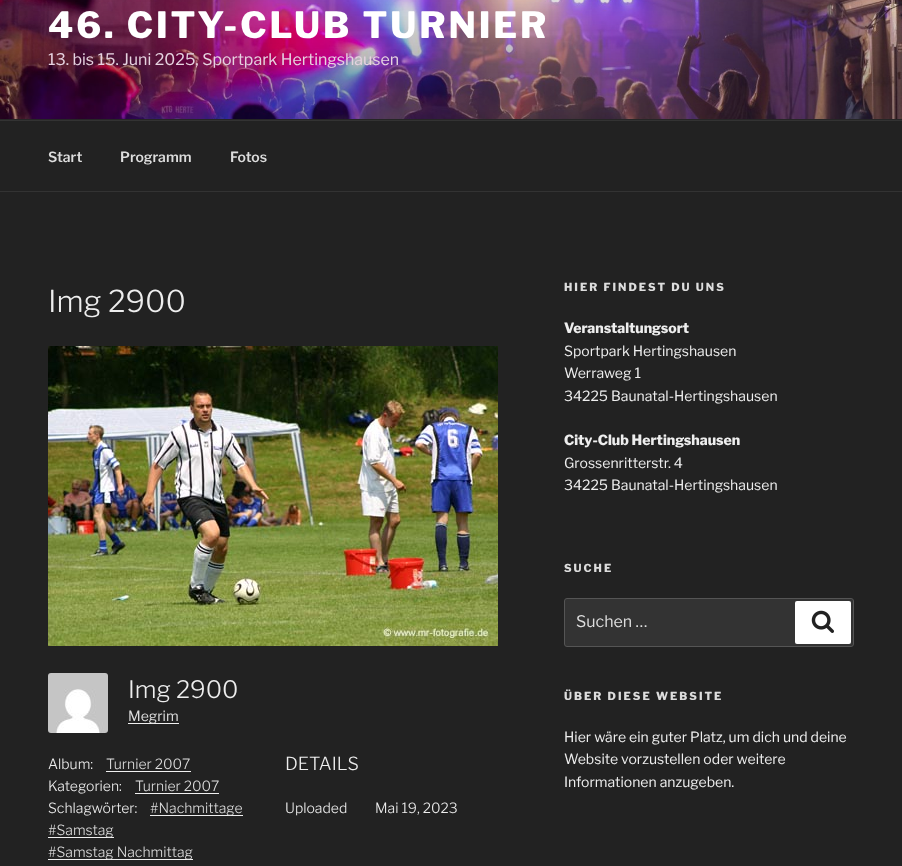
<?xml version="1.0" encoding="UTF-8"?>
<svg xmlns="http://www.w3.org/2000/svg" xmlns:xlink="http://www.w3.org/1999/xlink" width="902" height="866">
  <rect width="100%" height="100%" fill="#222222" />
  <rect y="119" width="902" height="1" fill="#262626" />
  <image x="0" y="0" width="902" height="119" xlink:href="image1.png" />
  <rect y="120" width="902" height="1" fill="#333333" />
  <rect y="191" width="902" height="1" fill="#333333" />
  <image x="48" y="346" width="450" height="300" xlink:href="image2.png" />
  <image x="48" y="673" width="60" height="60" xlink:href="image3.png" />
  <rect x="128" y="723" width="51" height="1" fill="#f0f0f0" />
  <rect x="106" y="771" width="85" height="1" fill="#f0f0f0" />
  <rect x="135" y="793" width="84" height="1" fill="#f0f0f0" />
  <rect x="150" y="815" width="93" height="1" fill="#f0f0f0" />
  <rect x="48" y="837" width="66" height="1" fill="#f0f0f0" />
  <rect x="48" y="859" width="145" height="1" fill="#f0f0f0" />
  <rect x="564.5" y="598.5" width="289" height="48" rx="2.5" fill="#333333" stroke="#555555" />
  <rect x="795" y="601" width="56" height="43" rx="2" fill="#ffffff" />
  <image x="811" y="610" width="23" height="23" xlink:href="image4.png" />
  <text x="48" y="38" style="font-family: 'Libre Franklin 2'; font-size: 36px; font-weight: 100; letter-spacing: 2.9px; fill: #ffffff">46. CITY-CLUB TURNIER</text>
  <text x="48" y="65" style="font-family: 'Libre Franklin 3'; font-size: 16px; font-weight: 100; fill: #e6d3e0">13. bis 15. Juni 2025, Sportpark Hertingshausen</text>
  <text x="48" y="162" style="font-family: 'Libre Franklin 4'; font-size: 14px; font-weight: 100; fill: #dddddd">Start</text>
  <text x="120" y="162" style="font-family: 'Libre Franklin 4'; font-size: 14px; font-weight: 100; fill: #dddddd">Programm</text>
  <text x="230" y="162" style="font-family: 'Libre Franklin 4'; font-size: 14px; font-weight: 100; fill: #dddddd">Fotos</text>
  <text x="48" y="312" style="font-family: Libre Franklin; font-size: 30px; font-weight: 100; fill: #eeeeee">Img 2900</text>
  <text x="128" y="698" style="font-family: Libre Franklin; font-size: 24px; font-weight: 100; fill: #eeeeee">Img 2900</text>
  <text x="128" y="721" style="font-family: 'Libre Franklin 3'; font-size: 14px; font-weight: 100; fill: #dddddd">Megrim</text>
  <text x="48" y="769" style="font-family: Libre Franklin; font-size: 14px; font-weight: 100; fill: #eeeeee">Album:</text>
  <text x="106" y="769" style="font-family: Libre Franklin; font-size: 14px; font-weight: 100; fill: #dddddd">Turnier 2007</text>
  <text x="48" y="791" style="font-family: Libre Franklin; font-size: 14px; font-weight: 100; fill: #eeeeee">Kategorien:</text>
  <text x="135" y="791" style="font-family: Libre Franklin; font-size: 14px; font-weight: 100; fill: #dddddd">Turnier 2007</text>
  <text x="48" y="813" style="font-family: Libre Franklin; font-size: 14px; font-weight: 100; fill: #eeeeee">Schlagwörter:</text>
  <text x="150" y="813" style="font-family: Libre Franklin; font-size: 14px; font-weight: 100; fill: #dddddd">#Nachmittage</text>
  <text x="48" y="835" style="font-family: Libre Franklin; font-size: 14px; font-weight: 100; fill: #dddddd">#Samstag</text>
  <text x="48" y="857" style="font-family: Libre Franklin; font-size: 14px; font-weight: 100; fill: #dddddd">#Samstag Nachmittag</text>
  <text x="285" y="770" style="font-family: Libre Franklin; font-size: 18px; font-weight: 100; fill: #eeeeee">DETAILS</text>
  <text x="285" y="813" style="font-family: Libre Franklin; font-size: 14px; font-weight: 100; fill: #eeeeee">Uploaded</text>
  <text x="375" y="813" style="font-family: Libre Franklin; font-size: 14px; font-weight: 100; fill: #eeeeee">Mai 19, 2023</text>
  <text x="564" y="291" style="font-family: 'Libre Franklin 2'; font-size: 11px; font-weight: 100; letter-spacing: 2px; fill: #dddddd">HIER FINDEST DU UNS</text>
  <text x="564" y="333" style="font-family: 'Libre Franklin 2'; font-size: 14px; font-weight: 100; fill: #eeeeee">Veranstaltungsort</text>
  <text x="564" y="356" style="font-family: 'Libre Franklin 3'; font-size: 14px; font-weight: 100; fill: #eeeeee">Sportpark Hertingshausen</text>
  <text x="564" y="378" style="font-family: 'Libre Franklin 3'; font-size: 14px; font-weight: 100; fill: #eeeeee">Werraweg 1</text>
  <text x="564" y="401" style="font-family: 'Libre Franklin 3'; font-size: 14px; font-weight: 100; fill: #eeeeee">34225 Baunatal-Hertingshausen</text>
  <text x="564" y="445" style="font-family: 'Libre Franklin 2'; font-size: 14px; font-weight: 100; fill: #eeeeee">City-Club Hertingshausen</text>
  <text x="564" y="468" style="font-family: 'Libre Franklin 3'; font-size: 14px; font-weight: 100; fill: #eeeeee">Grossenritterstr. 4</text>
  <text x="564" y="490" style="font-family: 'Libre Franklin 3'; font-size: 14px; font-weight: 100; fill: #eeeeee">34225 Baunatal-Hertingshausen</text>
  <text x="564" y="572" style="font-family: 'Libre Franklin 2'; font-size: 11px; font-weight: 100; letter-spacing: 2px; fill: #dddddd">SUCHE</text>
  <text x="576" y="627" style="font-family: 'Libre Franklin 3'; font-size: 16px; font-weight: 100; fill: #dddddd">Suchen …</text>
  <text x="564" y="700" style="font-family: 'Libre Franklin 2'; font-size: 11px; font-weight: 100; letter-spacing: 2px; fill: #dddddd">ÜBER DIESE WEBSITE</text>
  <text x="564" y="742" style="font-family: 'Libre Franklin 3'; font-size: 14px; font-weight: 100; fill: #eeeeee">Hier wäre ein guter Platz, um dich und deine</text>
  <text x="564" y="764" style="font-family: 'Libre Franklin 3'; font-size: 14px; font-weight: 100; fill: #eeeeee">Website vorzustellen oder weitere</text>
  <text x="564" y="787" style="font-family: 'Libre Franklin 3'; font-size: 14px; font-weight: 100; fill: #eeeeee">Informationen anzugeben.</text>
</svg>
